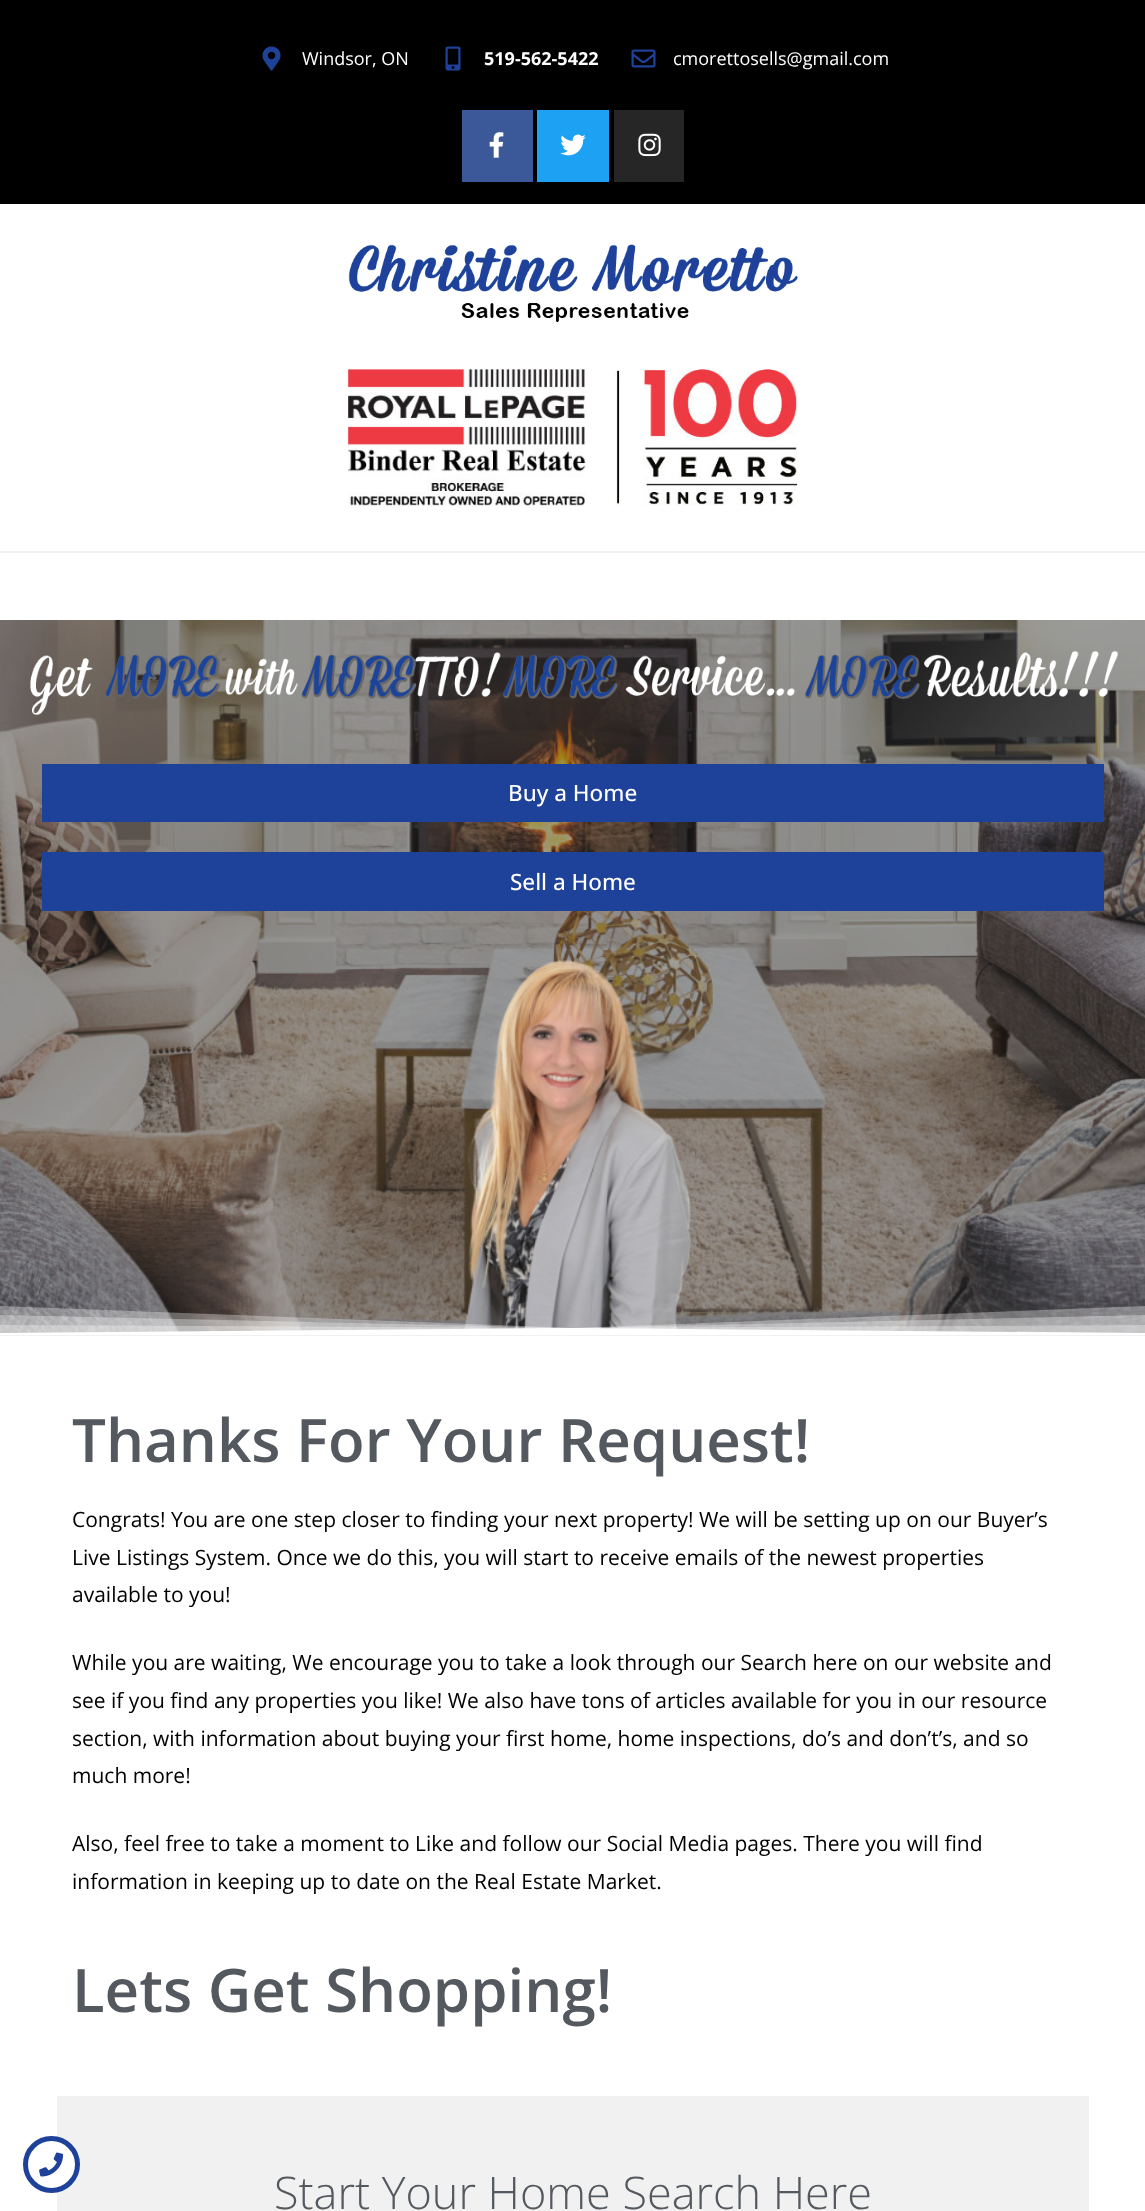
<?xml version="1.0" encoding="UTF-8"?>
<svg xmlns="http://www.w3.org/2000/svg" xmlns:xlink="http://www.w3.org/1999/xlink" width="1145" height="2211">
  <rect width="100%" height="100%" fill="#ffffff" />
  <rect y="1335" width="1145" height="1" fill="#f1f1f1" />
  <rect width="1145" height="204" fill="#000000" />
  <image x="262" y="46" width="19" height="25" xlink:href="image1.png" />
  <image x="445" y="46" width="16" height="25" xlink:href="image2.png" />
  <image x="631" y="49" width="25" height="19" xlink:href="image3.png" />
  <rect x="462" y="110" width="71" height="72" fill="#3b5998" />
  <image x="489" y="132" width="15" height="26" xlink:href="image4.png" />
  <rect x="537" y="110" width="72" height="72" fill="#1da1f2" />
  <image x="560" y="134" width="26" height="22" xlink:href="image5.png" />
  <rect x="614" y="110" width="70" height="72" fill="#262626" />
  <image x="638" y="133" width="23" height="24" xlink:href="image6.png" />
  <image x="348" y="244" width="450" height="78" xlink:href="image7.png" />
  <image x="348" y="369" width="450" height="137" xlink:href="image8.png" />
  <rect y="551" width="1145" height="2" fill="#f1f1f1" />
  <image x="0" y="620" width="1145" height="713" xlink:href="image9.png" />
  <image x="30" y="650" width="1089" height="66" xlink:href="image10.png" />
  <rect x="42" y="764" width="1062" height="58" fill="#1e419a" />
  <rect x="42" y="852" width="1062" height="59" fill="#1e419a" />
  <image x="464" y="959" width="227" height="370" xlink:href="image11.png" />
  <path d="M 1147 1335 v -29 l -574 22 l -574 -22 v 29 z" fill="#ffffff" fill-opacity="0.33" />
  <path d="M 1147 1335 v -20 l -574 13 l -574 -13 v 20 z" fill="#ffffff" fill-opacity="0.33" />
  <path d="M 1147 1335 v -10 l -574 3 l -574 -3 v 10 z" fill="#ffffff" fill-opacity="0.33" />
  <path d="M 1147 1335 v -2 l -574 -5 l -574 5 v 2 z" fill="#ffffff" />
  <rect x="57" y="2096" width="1032" height="115" fill="#f1f1f1" />
  <circle cx="51.5" cy="2164.5" r="26" fill="#ffffff" stroke="#1e419a" stroke-width="5" />
  <image x="39" y="2152" width="24" height="25" xlink:href="image12.png" />
  <text x="302" y="65" style="font-family: Open Sans; font-size: 18px; fill: #ffffff">Windsor, ON</text>
  <text x="484" y="65" style="font-family: Open Sans; font-size: 18px; font-weight: bold; fill: #ffffff">519-562-5422</text>
  <text x="673" y="65" style="font-family: Open Sans; font-size: 18px; fill: #ffffff">cmorettosells@gmail.com</text>
  <text x="508" y="801" style="font-family: Open Sans; font-size: 22.5px; font-weight: 500; fill: #ffffff">Buy a Home</text>
  <text x="510" y="890" style="font-family: Open Sans; font-size: 22.5px; font-weight: 500; fill: #ffffff">Sell a Home</text>
  <text x="72" y="1462" style="font-family: Open Sans; font-size: 60px; font-weight: 600; fill: #54595f">Thanks For Your Request!</text>
  <text x="72" y="1527" style="font-family: Open Sans; font-size: 21px; fill: #000000">Congrats! You are one step closer to finding your next property! We will be setting up on our Buyer’s</text>
  <text x="72" y="1565" style="font-family: Open Sans; font-size: 21px; fill: #000000">Live Listings System. Once we do this, you will start to receive emails of the newest properties</text>
  <text x="72" y="1602" style="font-family: Open Sans; font-size: 21px; fill: #000000">available to you!</text>
  <text x="72" y="1670" style="font-family: Open Sans; font-size: 21px; fill: #000000">While you are waiting, We encourage you to take a look through our Search here on our website and</text>
  <text x="72" y="1708" style="font-family: Open Sans; font-size: 21px; fill: #000000">see if you find any properties you like! We also have tons of articles available for you in our resource</text>
  <text x="72" y="1746" style="font-family: Open Sans; font-size: 21px; fill: #000000">section, with information about buying your first home, home inspections, do’s and don’t’s, and so</text>
  <text x="72" y="1783" style="font-family: Open Sans; font-size: 21px; fill: #000000">much more!</text>
  <text x="72" y="1851" style="font-family: Open Sans; font-size: 21px; fill: #000000">Also, feel free to take a moment to Like and follow our Social Media pages. There you will find</text>
  <text x="72" y="1889" style="font-family: Open Sans; font-size: 21px; fill: #000000">information in keeping up to date on the Real Estate Market.</text>
  <text x="72" y="2012" style="font-family: Open Sans; font-size: 60px; font-weight: 600; fill: #54595f">Lets Get Shopping!</text>
  <text x="274" y="2209" style="font-family: Open Sans; font-size: 45px; font-weight: 300; fill: #54595f">Start Your Home Search Here</text>
</svg>
